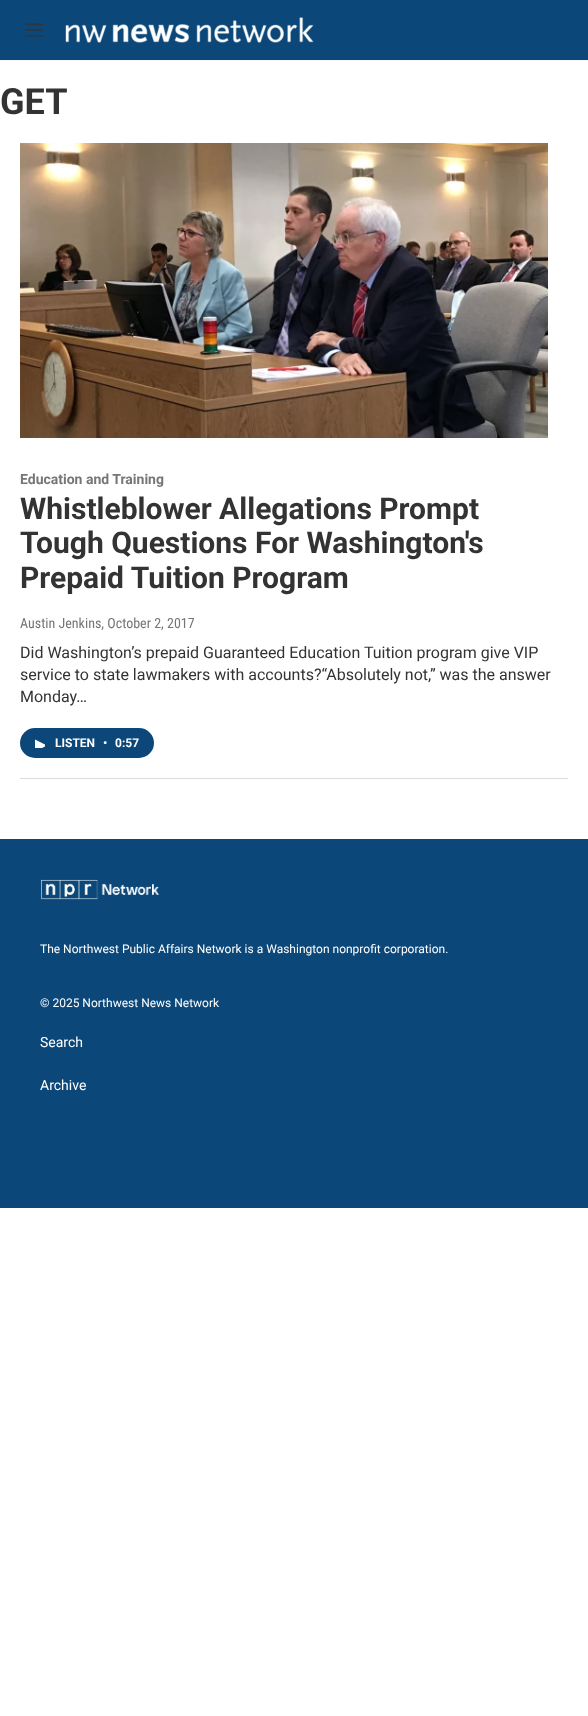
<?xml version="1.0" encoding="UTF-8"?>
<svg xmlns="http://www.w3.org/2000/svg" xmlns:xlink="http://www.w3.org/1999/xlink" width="588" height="1716">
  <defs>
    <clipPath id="clip1"><rect x="35" y="738" width="10" height="10" /></clipPath>
  </defs>
  <rect width="100%" height="100%" fill="#ffffff" />
  <rect width="588" height="60" fill="#0b4778" />
  <rect y="60" width="588" height="1" fill="#f5f5f5" />
  <image x="25" y="23" width="18" height="14" xlink:href="image1.png" />
  <image x="65" y="17" width="249" height="26" xlink:href="image2.png" />
  <rect x="20" y="778" width="548" height="1" fill="#dcdcdc" />
  <image x="20" y="143" width="528" height="295" xlink:href="image3.png" />
  <rect x="20" y="728" width="134" height="30" rx="15" fill="#0b4778" />
  <g clip-path="url(#clip1)">
    <path d="M 35 739.5 l 12 6 l -12 6 z" fill="#ffffff" />
  </g>
  <rect y="839" width="588" height="369" fill="#0b4778" />
  <image x="41" y="879" width="118" height="21" xlink:href="image4.png" />
  <text x="0" y="114" style="font-family: Roboto; font-size: 36px; font-weight: bold; fill: #333333">GET</text>
  <text x="20" y="484" style="font-family: Roboto; font-size: 14px; font-weight: bold; fill: #767676">Education and Training</text>
  <text x="20" y="519" style="font-family: Roboto; font-size: 30px; font-weight: bold; fill: #333333">Whistleblower Allegations Prompt</text>
  <text x="20" y="553" style="font-family: Roboto; font-size: 30px; font-weight: bold; fill: #333333">Tough Questions For Washington's</text>
  <text x="20" y="588" style="font-family: Roboto; font-size: 30px; font-weight: bold; fill: #333333">Prepaid Tuition Program</text>
  <text x="20" y="628" style="font-family: Roboto Condensed; font-size: 14px; fill: #767676">Austin Jenkins, October 2, 2017</text>
  <text x="20" y="658" style="font-family: Roboto; font-size: 16px; fill: #333333">Did Washington’s prepaid Guaranteed Education Tuition program give VIP</text>
  <text x="20" y="680" style="font-family: Roboto; font-size: 16px; fill: #333333">service to state lawmakers with accounts?“Absolutely not,” was the answer</text>
  <text x="20" y="702" style="font-family: Roboto; font-size: 16px; fill: #333333">Monday…</text>
  <text x="55" y="747" style="font-family: 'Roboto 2'; font-size: 12px; font-weight: bold; fill: #ffffff">LISTEN</text>
  <text x="103" y="747" style="font-family: 'Roboto 2'; font-size: 12px; font-weight: bold; fill: #ffffff">•</text>
  <text x="115" y="747" style="font-family: 'Roboto 2'; font-size: 12px; font-weight: bold; fill: #ffffff">0:57</text>
  <text x="40" y="953" style="font-family: Roboto; font-size: 12px; fill: #ffffff">The Northwest Public Affairs Network is a Washington nonprofit corporation.</text>
  <text x="40" y="1007" style="font-family: Roboto; font-size: 12px; fill: #ffffff">© 2025 Northwest News Network</text>
  <text x="40" y="1047" style="font-family: Roboto; font-size: 14px; fill: #ffffff">Search</text>
  <text x="40" y="1090" style="font-family: Roboto; font-size: 14px; fill: #ffffff">Archive</text>
</svg>
